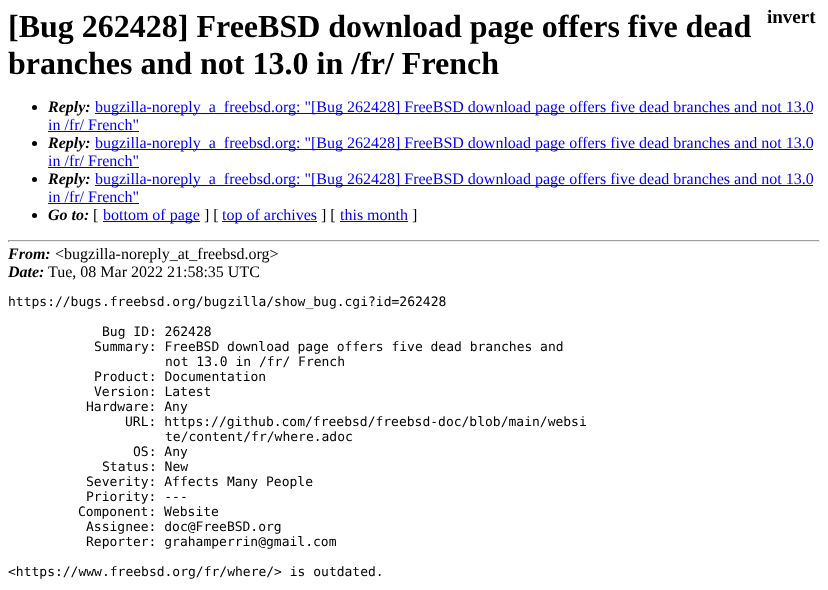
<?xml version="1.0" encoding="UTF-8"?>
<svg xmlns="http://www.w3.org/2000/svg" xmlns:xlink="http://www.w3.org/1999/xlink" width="828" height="590">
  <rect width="100%" height="100%" fill="#ffffff" />
  <circle cx="34.5" cy="107.5" r="2.5" fill="#000000" />
  <rect x="95" y="113" width="718" height="1" fill="#0000ee" />
  <rect x="48" y="131" width="91" height="1" fill="#0000ee" />
  <circle cx="34.5" cy="143.5" r="2.5" fill="#000000" />
  <rect x="95" y="149" width="718" height="1" fill="#0000ee" />
  <rect x="48" y="167" width="91" height="1" fill="#0000ee" />
  <circle cx="34.5" cy="179.5" r="2.5" fill="#000000" />
  <rect x="95" y="185" width="718" height="1" fill="#0000ee" />
  <rect x="48" y="203" width="91" height="1" fill="#0000ee" />
  <circle cx="34.5" cy="215.5" r="2.5" fill="#000000" />
  <rect x="103" y="221" width="97" height="1" fill="#0000ee" />
  <rect x="222" y="221" width="95" height="1" fill="#0000ee" />
  <rect x="340" y="221" width="68" height="1" fill="#0000ee" />
  <rect x="8" y="240" width="812" height="1" fill="#9f9f9f" />
  <rect x="819" y="240" width="1" height="2" fill="#eeeeee" />
  <rect x="8" y="241" width="812" height="1" fill="#eeeeee" />
  <rect x="8" y="240" width="1" height="2" fill="#9f9f9f" />
  <text x="767" y="23" style="font-family: Liberation Serif; font-size: 19px; font-weight: bold; fill: #000000">invert</text>
  <text x="8" y="37" style="font-family: Liberation Serif; font-size: 32px; font-weight: bold; fill: #000000">[Bug 262428] FreeBSD download page offers five dead</text>
  <text x="8" y="74" style="font-family: Liberation Serif; font-size: 32px; font-weight: bold; fill: #000000">branches and not 13.0 in /fr/ French</text>
  <text x="48" y="112" style="font-family: Liberation Serif; font-size: 16px; font-weight: bold; font-style: italic; fill: #000000">Reply:</text>
  <text x="95" y="112" style="font-family: Liberation Serif; font-size: 16px; fill: #0000ee">bugzilla-noreply_a_freebsd.org: "[Bug 262428] FreeBSD download page offers five dead branches and not 13.0</text>
  <text x="48" y="130" style="font-family: Liberation Serif; font-size: 16px; fill: #0000ee">in /fr/ French"</text>
  <text x="48" y="148" style="font-family: Liberation Serif; font-size: 16px; font-weight: bold; font-style: italic; fill: #000000">Reply:</text>
  <text x="95" y="148" style="font-family: Liberation Serif; font-size: 16px; fill: #0000ee">bugzilla-noreply_a_freebsd.org: "[Bug 262428] FreeBSD download page offers five dead branches and not 13.0</text>
  <text x="48" y="166" style="font-family: Liberation Serif; font-size: 16px; fill: #0000ee">in /fr/ French"</text>
  <text x="48" y="184" style="font-family: Liberation Serif; font-size: 16px; font-weight: bold; font-style: italic; fill: #000000">Reply:</text>
  <text x="95" y="184" style="font-family: Liberation Serif; font-size: 16px; fill: #0000ee">bugzilla-noreply_a_freebsd.org: "[Bug 262428] FreeBSD download page offers five dead branches and not 13.0</text>
  <text x="48" y="202" style="font-family: Liberation Serif; font-size: 16px; fill: #0000ee">in /fr/ French"</text>
  <text x="48" y="220" style="font-family: Liberation Serif; font-size: 16px; font-weight: bold; font-style: italic; fill: #000000">Go to:</text>
  <text x="93" y="220" style="font-family: Liberation Serif; font-size: 16px; fill: #000000">[</text>
  <text x="103" y="220" style="font-family: Liberation Serif; font-size: 16px; fill: #0000ee">bottom of page</text>
  <text x="204" y="220" style="font-family: Liberation Serif; font-size: 16px; fill: #000000">] [</text>
  <text x="222" y="220" style="font-family: Liberation Serif; font-size: 16px; fill: #0000ee">top of archives</text>
  <text x="321" y="220" style="font-family: Liberation Serif; font-size: 16px; fill: #000000">] [</text>
  <text x="340" y="220" style="font-family: Liberation Serif; font-size: 16px; fill: #0000ee">this month</text>
  <text x="412" y="220" style="font-family: Liberation Serif; font-size: 16px; fill: #000000">]</text>
  <text x="8" y="259" style="font-family: Liberation Serif; font-size: 16px; font-weight: bold; font-style: italic; fill: #000000">From:</text>
  <text x="55" y="259" style="font-family: Liberation Serif; font-size: 16px; fill: #000000">&lt;bugzilla-noreply_at_freebsd.org&gt;</text>
  <text x="8" y="277" style="font-family: Liberation Serif; font-size: 16px; font-weight: bold; font-style: italic; fill: #000000">Date:</text>
  <text x="48" y="277" style="font-family: Liberation Serif; font-size: 16px; fill: #000000">Tue, 08 Mar 2022 21:58:35 UTC</text>
  <text x="8" y="306" style="font-family: DejaVu Sans Mono; font-size: 13px; fill: #000000">https://bugs.freebsd.org/bugzilla/show_bug.cgi?id=262428</text>
  <text x="102" y="336" style="font-family: DejaVu Sans Mono; font-size: 13px; fill: #000000">Bug ID: 262428</text>
  <text x="94" y="351" style="font-family: DejaVu Sans Mono; font-size: 13px; fill: #000000">Summary: FreeBSD download page offers five dead branches and</text>
  <text x="165" y="366" style="font-family: DejaVu Sans Mono; font-size: 13px; fill: #000000">not 13.0 in /fr/ French</text>
  <text x="94" y="381" style="font-family: DejaVu Sans Mono; font-size: 13px; fill: #000000">Product: Documentation</text>
  <text x="94" y="396" style="font-family: DejaVu Sans Mono; font-size: 13px; fill: #000000">Version: Latest</text>
  <text x="86" y="411" style="font-family: DejaVu Sans Mono; font-size: 13px; fill: #000000">Hardware: Any</text>
  <text x="125" y="426" style="font-family: DejaVu Sans Mono; font-size: 13px; fill: #000000">URL: https://github.com/freebsd/freebsd-doc/blob/main/websi</text>
  <text x="165" y="441" style="font-family: DejaVu Sans Mono; font-size: 13px; fill: #000000">te/content/fr/where.adoc</text>
  <text x="133" y="456" style="font-family: DejaVu Sans Mono; font-size: 13px; fill: #000000">OS: Any</text>
  <text x="102" y="471" style="font-family: DejaVu Sans Mono; font-size: 13px; fill: #000000">Status: New</text>
  <text x="86" y="486" style="font-family: DejaVu Sans Mono; font-size: 13px; fill: #000000">Severity: Affects Many People</text>
  <text x="86" y="501" style="font-family: DejaVu Sans Mono; font-size: 13px; fill: #000000">Priority: ---</text>
  <text x="78" y="516" style="font-family: DejaVu Sans Mono; font-size: 13px; fill: #000000">Component: Website</text>
  <text x="86" y="531" style="font-family: DejaVu Sans Mono; font-size: 13px; fill: #000000">Assignee: doc@FreeBSD.org</text>
  <text x="86" y="546" style="font-family: DejaVu Sans Mono; font-size: 13px; fill: #000000">Reporter: grahamperrin@gmail.com</text>
  <text x="8" y="576" style="font-family: DejaVu Sans Mono; font-size: 13px; fill: #000000">&lt;https://www.freebsd.org/fr/where/&gt; is outdated.</text>
</svg>
